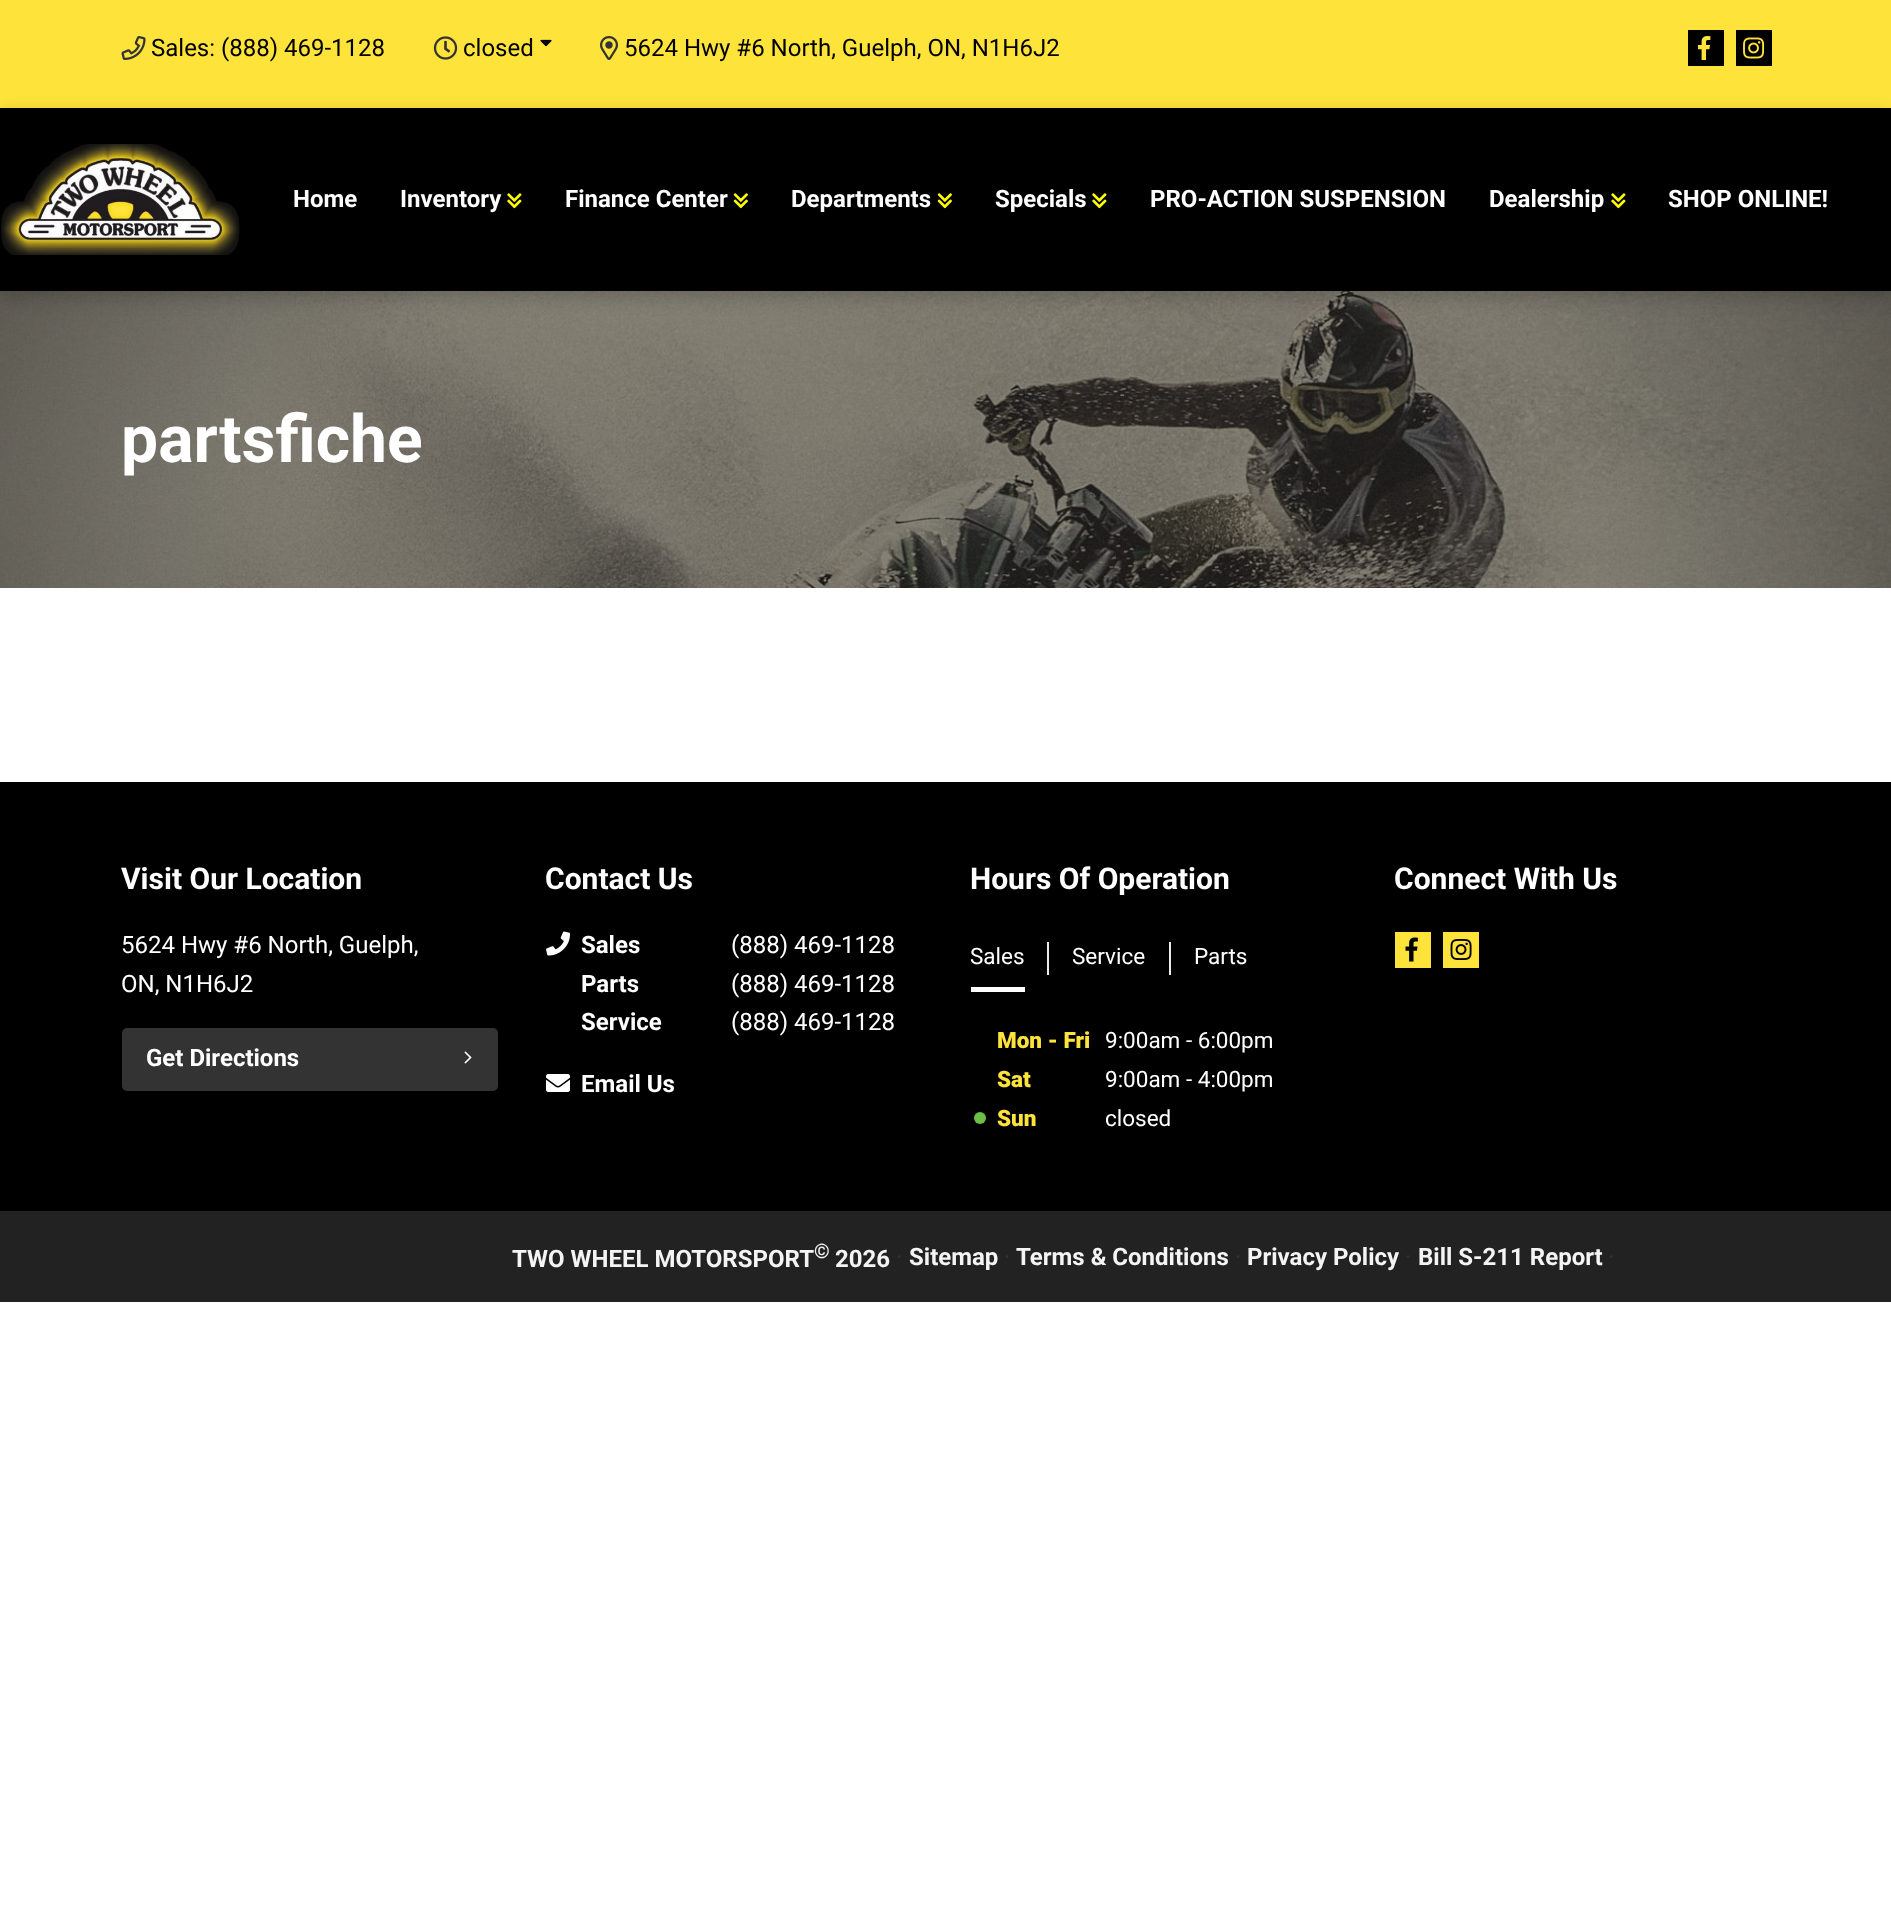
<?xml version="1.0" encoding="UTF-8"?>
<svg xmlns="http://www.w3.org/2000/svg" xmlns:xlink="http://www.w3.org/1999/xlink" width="1891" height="1911">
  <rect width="100%" height="100%" fill="#ffffff" />
  <rect width="1891" height="108" fill="#fee33b" />
  <image x="121" y="36" width="25" height="24" xlink:href="image1.png" />
  <image x="433" y="36" width="25" height="24" xlink:href="image2.png" />
  <image x="540" y="39" width="12" height="8" xlink:href="image3.png" />
  <image x="600" y="36" width="18" height="24" xlink:href="image4.png" />
  <rect x="1688" y="30" width="36" height="36" fill="#000000" />
  <image x="1698" y="36" width="13" height="24" xlink:href="image5.png" />
  <rect x="1736" y="30" width="36" height="36" fill="#000000" />
  <image x="1743" y="37" width="22" height="22" xlink:href="image6.png" />
  <image x="0" y="291" width="1891" height="297" xlink:href="image10.png" />
  <rect y="114" width="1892" height="183" fill="#000000" fill-opacity="0.2" filter="blur(9px)" />
  <rect y="108" width="1891" height="183" fill="#000000" />
  <image x="1" y="144" width="239" height="111" xlink:href="image7.png" />
  <image x="507" y="193" width="15" height="16" xlink:href="image8.png" />
  <image x="733" y="193" width="15" height="16" xlink:href="image9.png" />
  <image x="937" y="193" width="15" height="16" xlink:href="image9.png" />
  <image x="1092" y="193" width="15" height="16" xlink:href="image8.png" />
  <image x="1611" y="193" width="15" height="16" xlink:href="image8.png" />
  <rect y="782" width="1891" height="429" fill="#000000" />
  <rect x="122" y="1028" width="376" height="63" rx="5" fill="#333333" />
  <image x="464" y="1051" width="8" height="13" xlink:href="image11.png" />
  <image x="546" y="931" width="24" height="25" xlink:href="image12.png" />
  <image x="546" y="1074" width="24" height="18" xlink:href="image13.png" />
  <rect x="971" y="987" width="54" height="5" fill="#ffffff" />
  <rect x="1047" y="942" width="2" height="33" fill="#ececec" />
  <rect x="1169" y="942" width="2" height="33" fill="#ececec" />
  <circle cx="980" cy="1118" r="6" fill="#6bbf49" />
  <rect x="1395" y="932" width="36" height="36" fill="#fee33b" />
  <image x="1405" y="937" width="13" height="25" xlink:href="image14.png" />
  <rect x="1443" y="932" width="36" height="36" fill="#fee33b" />
  <image x="1450" y="939" width="22" height="21" xlink:href="image15.png" />
  <rect y="1211" width="1891" height="91" fill="#222222" />
  <text x="151" y="56" style="font-family: Roboto; font-size: 24px; fill: #000000">Sales: (888) 469-1128</text>
  <text x="463" y="56" style="font-family: Roboto; font-size: 24px; fill: #000000">closed</text>
  <text x="624" y="56" style="font-family: Roboto; font-size: 24px; fill: #000000">5624 Hwy #6 North, Guelph, ON, N1H6J2</text>
  <text x="293" y="207" style="font-family: Roboto; font-size: 24px; font-weight: bold; fill: #ffffff">Home</text>
  <text x="400" y="207" style="font-family: Roboto; font-size: 24px; font-weight: bold; fill: #ffffff">Inventory</text>
  <text x="565" y="207" style="font-family: Roboto; font-size: 24px; font-weight: bold; fill: #ffffff">Finance Center</text>
  <text x="791" y="207" style="font-family: Roboto; font-size: 24px; font-weight: bold; fill: #ffffff">Departments</text>
  <text x="995" y="207" style="font-family: Roboto; font-size: 24px; font-weight: bold; fill: #ffffff">Specials</text>
  <text x="1150" y="207" style="font-family: Roboto; font-size: 24px; font-weight: bold; fill: #ffffff">PRO-ACTION SUSPENSION</text>
  <text x="1489" y="207" style="font-family: Roboto; font-size: 24px; font-weight: bold; fill: #ffffff">Dealership</text>
  <text x="1668" y="207" style="font-family: Roboto; font-size: 24px; font-weight: bold; fill: #ffffff">SHOP ONLINE!</text>
  <text x="121" y="462" style="font-family: Roboto; font-size: 66px; font-weight: bold; fill: #ffffff">partsfiche</text>
  <text x="121" y="889" style="font-family: Roboto; font-size: 30px; font-weight: bold; fill: #ffffff">Visit Our Location</text>
  <text x="121" y="953" style="font-family: Roboto; font-size: 24px; fill: #ffffff">5624 Hwy #6 North, Guelph,</text>
  <text x="121" y="992" style="font-family: Roboto; font-size: 24px; fill: #ffffff">ON, N1H6J2</text>
  <text x="146" y="1066" style="font-family: Roboto; font-size: 24px; font-weight: bold; fill: #ffffff">Get Directions</text>
  <text x="545" y="889" style="font-family: Roboto; font-size: 30px; font-weight: bold; fill: #ffffff">Contact Us</text>
  <text x="581" y="953" style="font-family: Roboto; font-size: 24px; font-weight: bold; fill: #ffffff">Sales</text>
  <text x="731" y="953" style="font-family: Roboto; font-size: 24px; fill: #ffffff">(888) 469-1128</text>
  <text x="581" y="992" style="font-family: Roboto; font-size: 24px; font-weight: bold; fill: #ffffff">Parts</text>
  <text x="731" y="992" style="font-family: Roboto; font-size: 24px; fill: #ffffff">(888) 469-1128</text>
  <text x="581" y="1030" style="font-family: Roboto; font-size: 24px; font-weight: bold; fill: #ffffff">Service</text>
  <text x="731" y="1030" style="font-family: Roboto; font-size: 24px; fill: #ffffff">(888) 469-1128</text>
  <text x="581" y="1092" style="font-family: Roboto; font-size: 24px; font-weight: bold; fill: #ffffff">Email Us</text>
  <text x="970" y="889" style="font-family: Roboto; font-size: 30px; font-weight: bold; fill: #ffffff">Hours Of Operation</text>
  <text x="970" y="964" style="font-family: Roboto; font-size: 22.5px; fill: #ffffff">Sales</text>
  <text x="1072" y="964" style="font-family: Roboto; font-size: 22.5px; fill: #ffffff">Service</text>
  <text x="1194" y="964" style="font-family: Roboto; font-size: 22.5px; fill: #ffffff">Parts</text>
  <text x="997" y="1048" style="font-family: Roboto; font-size: 22.5px; font-weight: 900; fill: #fee33b">Mon - Fri</text>
  <text x="1105" y="1048" style="font-family: Roboto; font-size: 22.5px; fill: #ffffff">9:00am - 6:00pm</text>
  <text x="997" y="1087" style="font-family: Roboto; font-size: 22.5px; font-weight: 900; fill: #fee33b">Sat</text>
  <text x="1105" y="1087" style="font-family: Roboto; font-size: 22.5px; fill: #ffffff">9:00am - 4:00pm</text>
  <text x="997" y="1126" style="font-family: Roboto; font-size: 22.5px; font-weight: 900; fill: #fee33b">Sun</text>
  <text x="1105" y="1126" style="font-family: Roboto; font-size: 22.5px; fill: #ffffff">closed</text>
  <text x="1394" y="889" style="font-family: Roboto; font-size: 30px; font-weight: bold; fill: #ffffff">Connect With Us</text>
  <text x="512" y="1267" style="font-family: Roboto; font-size: 24px; font-weight: bold; fill: #f4f4f4">TWO WHEEL MOTORSPORT</text>
  <text x="814" y="1258" style="font-family: Roboto; font-size: 20px; font-weight: bold; fill: #f4f4f4">©</text>
  <text x="835" y="1267" style="font-family: Roboto; font-size: 24px; font-weight: bold; fill: #f4f4f4">2026</text>
  <text x="896" y="1265" style="font-family: Roboto; font-size: 24px; fill: #333333">·</text>
  <text x="909" y="1265" style="font-family: Roboto; font-size: 24px; font-weight: bold; fill: #f4f4f4">Sitemap</text>
  <text x="1004" y="1265" style="font-family: Roboto; font-size: 24px; fill: #333333">·</text>
  <text x="1016" y="1265" style="font-family: Roboto; font-size: 24px; font-weight: bold; fill: #f4f4f4">Terms &amp; Conditions</text>
  <text x="1235" y="1265" style="font-family: Roboto; font-size: 24px; fill: #333333">·</text>
  <text x="1247" y="1265" style="font-family: Roboto; font-size: 24px; font-weight: bold; fill: #f4f4f4">Privacy Policy</text>
  <text x="1405" y="1265" style="font-family: Roboto; font-size: 24px; fill: #333333">·</text>
  <text x="1418" y="1265" style="font-family: Roboto; font-size: 24px; font-weight: bold; fill: #f4f4f4">Bill S-211 Report</text>
  <text x="1608" y="1265" style="font-family: Roboto; font-size: 24px; fill: #333333">·</text>
</svg>
